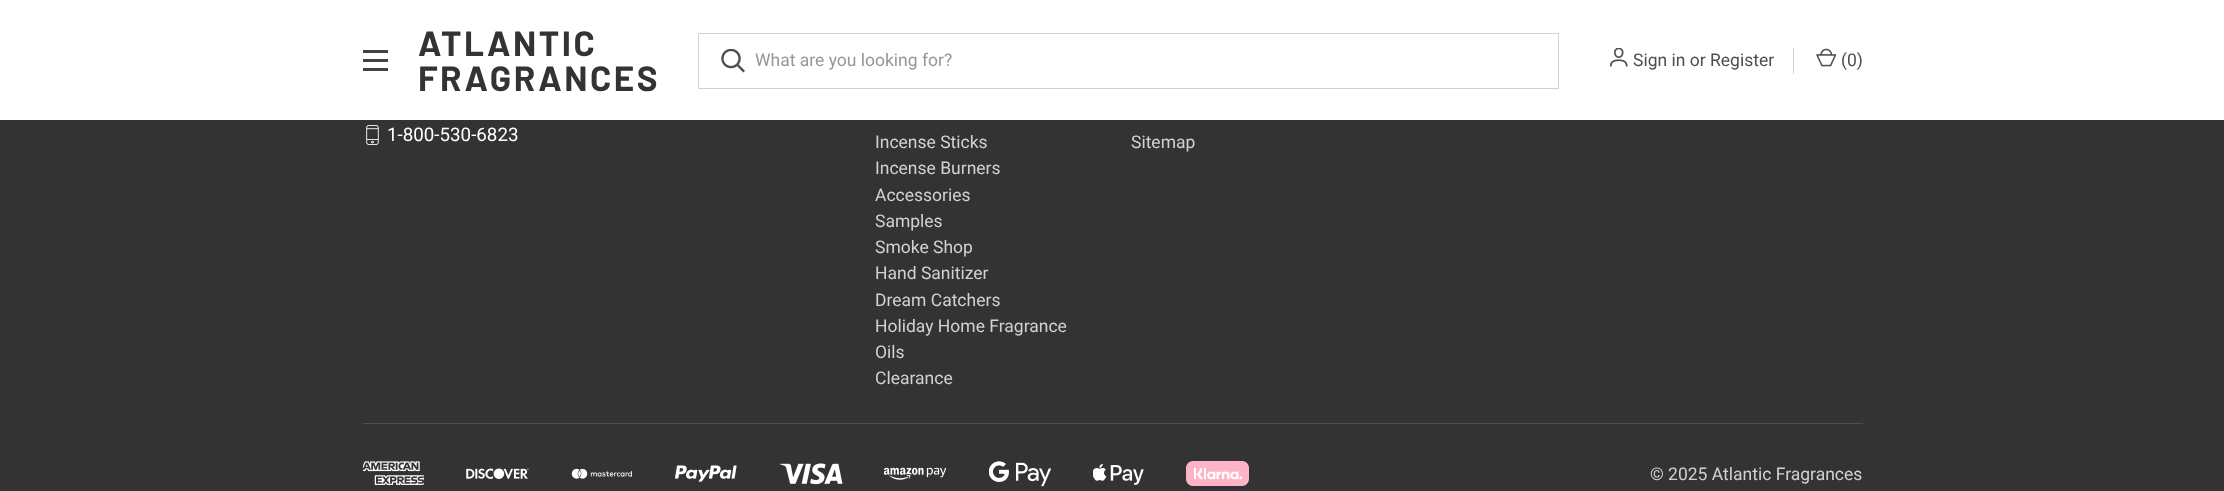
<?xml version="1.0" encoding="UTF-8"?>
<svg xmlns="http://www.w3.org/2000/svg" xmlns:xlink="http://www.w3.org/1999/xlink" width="2224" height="491">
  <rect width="100%" height="100%" fill="#333333" />
  <rect width="2224" height="120" fill="#ffffff" />
  <rect x="363" y="59" width="25" height="3" fill="#424242" />
  <rect x="363" y="50" width="25" height="3" fill="#424242" />
  <rect x="363" y="68" width="25" height="3" fill="#424242" />
  <rect x="698.5" y="33.5" width="860" height="55" fill="none" stroke="#d2d2d2" />
  <image x="721" y="49" width="24" height="24" xlink:href="image1.png" />
  <image x="1609" y="48" width="19" height="19" xlink:href="image2.png" />
  <rect x="1793" y="48" width="1" height="26" fill="#d2d2d2" />
  <image x="1816" y="48" width="20" height="19" xlink:href="image3.png" />
  <image x="366" y="125" width="13" height="20" xlink:href="image4.png" />
  <rect x="363" y="423" width="1500" height="1" fill="#4e4e4e" />
  <image x="363" y="461" width="61" height="24" xlink:href="image5.png" />
  <image x="466" y="468" width="63" height="11" xlink:href="image6.png" />
  <image x="571" y="468" width="63" height="11" xlink:href="image7.png" />
  <image x="675" y="465" width="62" height="17" xlink:href="image8.png" />
  <image x="780" y="463" width="63" height="22" xlink:href="image9.png" />
  <image x="884" y="467" width="62" height="13" xlink:href="image10.png" />
  <image x="989" y="461" width="62" height="26" xlink:href="image11.png" />
  <image x="1093" y="463" width="51" height="22" xlink:href="image12.png" />
  <image x="1186" y="461" width="63" height="25" xlink:href="image13.png" />
  <text x="418" y="56" style="font-family: Barlow; font-size: 35px; font-weight: bold; letter-spacing: 2.5px; fill: #333333">ATLANTIC</text>
  <text x="418" y="91" style="font-family: Barlow; font-size: 35px; font-weight: bold; letter-spacing: 2.5px; fill: #333333">FRAGRANCES</text>
  <text x="755" y="66" style="font-family: Roboto; font-size: 17.5px; fill: #969696">What are you looking for?</text>
  <text x="1633" y="66" style="font-family: Roboto; font-size: 17.5px; fill: #4e4e4e">Sign in or Register</text>
  <text x="1841" y="66" style="font-family: Roboto; font-size: 17.5px; fill: #4e4e4e">(0)</text>
  <text x="387" y="141" style="font-family: Roboto; font-size: 18.75px; fill: #ffffff">1-800-530-6823</text>
  <text x="875" y="148" style="font-family: Roboto; font-size: 17.5px; fill: #d2d2d2">Incense Sticks</text>
  <text x="875" y="174" style="font-family: Roboto; font-size: 17.5px; fill: #d2d2d2">Incense Burners</text>
  <text x="875" y="201" style="font-family: Roboto; font-size: 17.5px; fill: #d2d2d2">Accessories</text>
  <text x="875" y="227" style="font-family: Roboto; font-size: 17.5px; fill: #d2d2d2">Samples</text>
  <text x="875" y="253" style="font-family: Roboto; font-size: 17.5px; fill: #d2d2d2">Smoke Shop</text>
  <text x="875" y="279" style="font-family: Roboto; font-size: 17.5px; fill: #d2d2d2">Hand Sanitizer</text>
  <text x="875" y="306" style="font-family: Roboto; font-size: 17.5px; fill: #d2d2d2">Dream Catchers</text>
  <text x="875" y="332" style="font-family: Roboto; font-size: 17.5px; fill: #d2d2d2">Holiday Home Fragrance</text>
  <text x="875" y="358" style="font-family: Roboto; font-size: 17.5px; fill: #d2d2d2">Oils</text>
  <text x="875" y="384" style="font-family: Roboto; font-size: 17.5px; fill: #d2d2d2">Clearance</text>
  <text x="1131" y="148" style="font-family: Roboto; font-size: 17.5px; fill: #d2d2d2">Sitemap</text>
  <text x="1650" y="480" style="font-family: Roboto; font-size: 17.5px; fill: #d2d2d2">© 2025 Atlantic Fragrances</text>
</svg>
